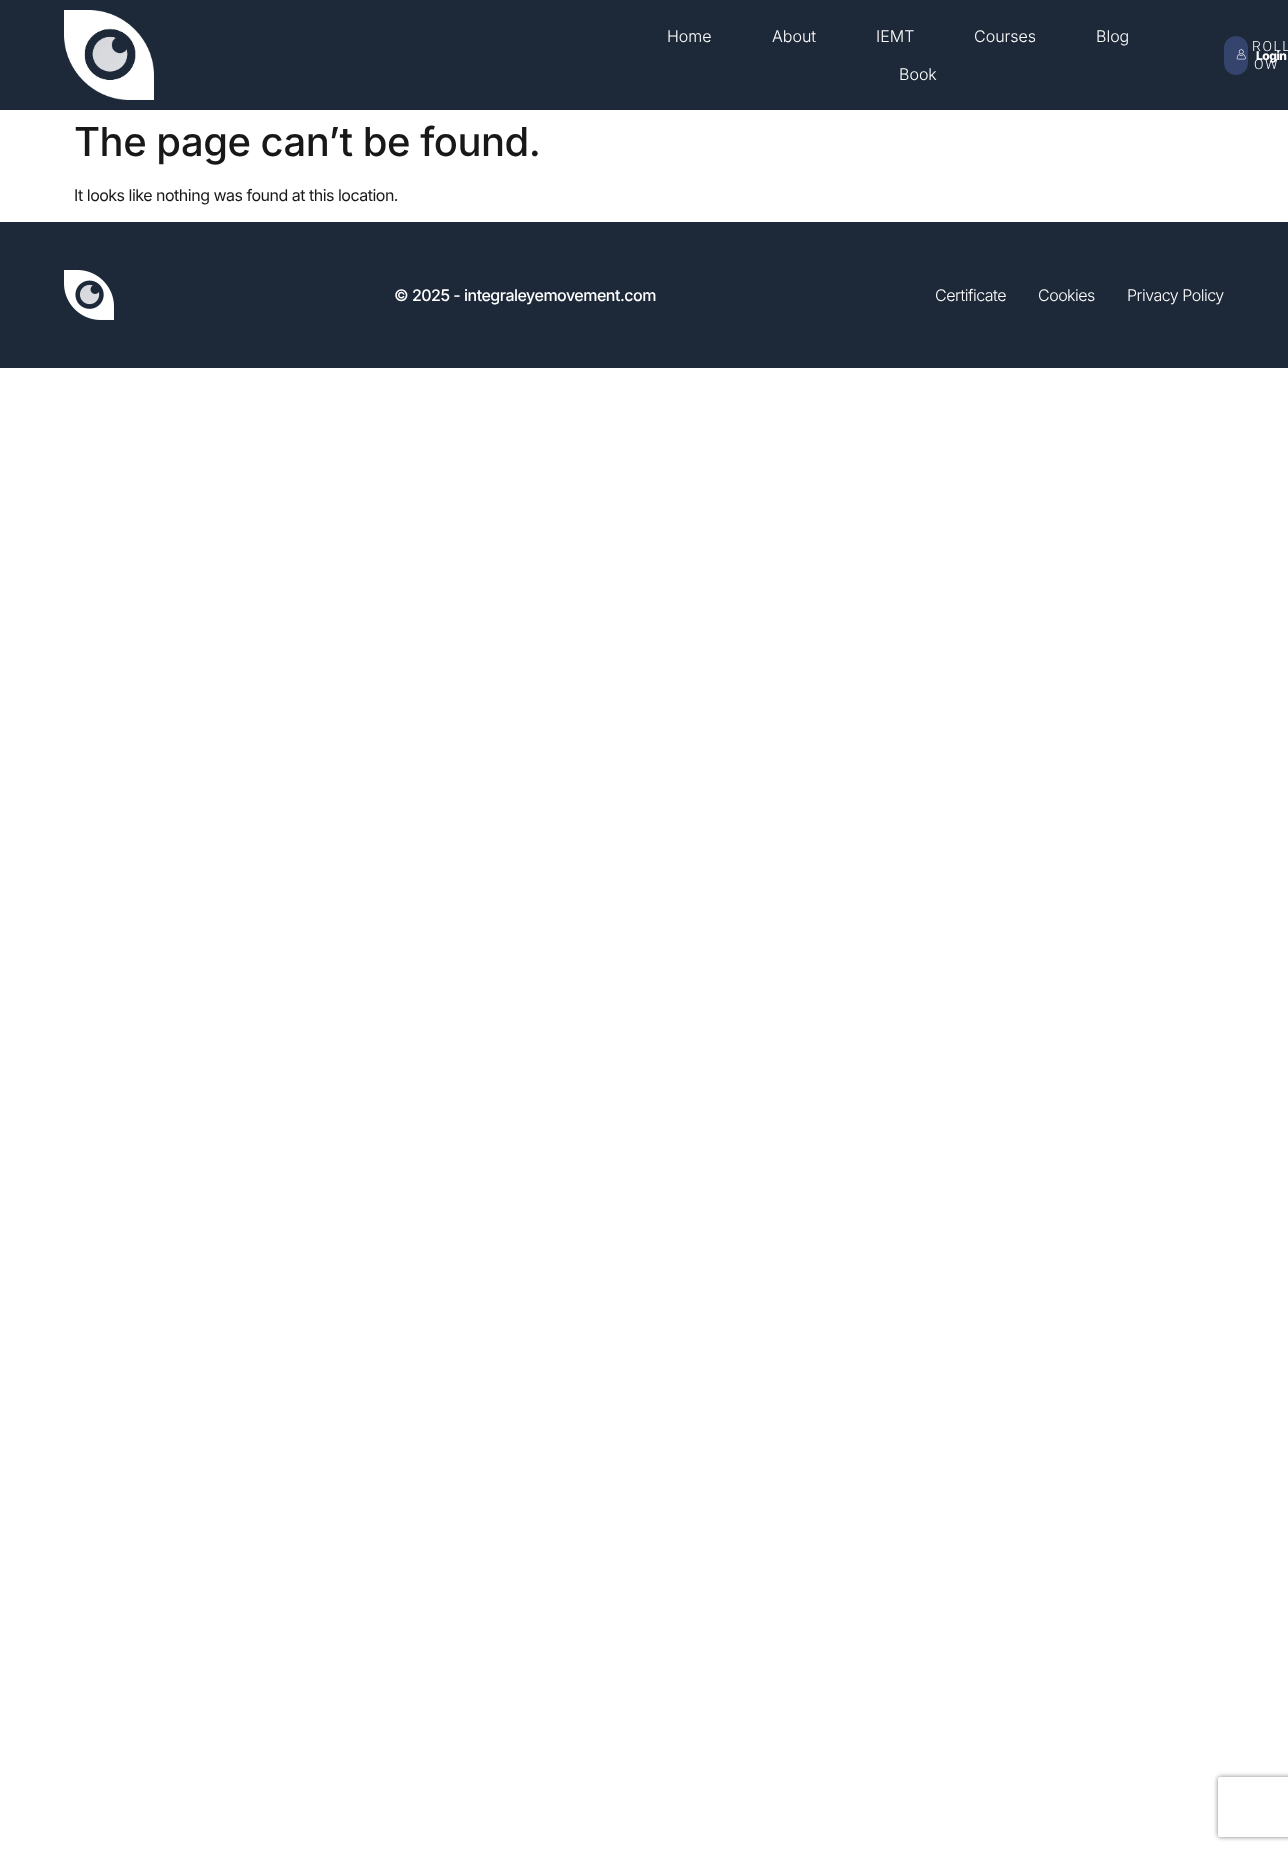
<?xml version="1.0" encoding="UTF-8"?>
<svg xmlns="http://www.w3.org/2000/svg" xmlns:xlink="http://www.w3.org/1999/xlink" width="1288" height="1851">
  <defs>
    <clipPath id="clip1"><path d="M 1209 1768 h 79 v 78 h -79 z m 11 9 h 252 c 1 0 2 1 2 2 v 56 c 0 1 -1 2 -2 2 h -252 c -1 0 -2 -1 -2 -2 v -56 c 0 -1 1 -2 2 -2 z" clip-rule="evenodd" /></clipPath>
  </defs>
  <rect width="100%" height="100%" fill="#ffffff" />
  <rect width="1288" height="110" fill="#1d2939" />
  <image x="64" y="10" width="90" height="90" xlink:href="image1.png" />
  <rect x="1224" y="36" width="24" height="39" rx="12" fill="#35446c" />
  <image x="1236" y="49" width="10" height="11" xlink:href="image2.png" />
  <rect y="222" width="1288" height="146" fill="#1d2939" />
  <image x="64" y="270" width="50" height="50" xlink:href="image3.png" />
  <g clip-path="url(#clip1)">
    <rect x="1218" y="1777" width="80" height="60" rx="2" fill="#808080" filter="blur(2.5px)" />
  </g>
  <text x="667" y="42" style="font-family: Inter; font-size: 16px; font-weight: 300; fill: #ffffff">Home</text>
  <text x="772" y="42" style="font-family: Inter; font-size: 16px; font-weight: 300; fill: #ffffff">About</text>
  <text x="876" y="42" style="font-family: Inter; font-size: 16px; font-weight: 300; fill: #ffffff">IEMT</text>
  <text x="974" y="42" style="font-family: Inter; font-size: 16px; font-weight: 300; fill: #ffffff">Courses</text>
  <text x="1096" y="42" style="font-family: Inter; font-size: 16px; font-weight: 300; fill: #ffffff">Blog</text>
  <text x="899" y="80" style="font-family: Inter; font-size: 16px; font-weight: 300; fill: #ffffff">Book</text>
  <text x="1252" y="51" style="font-family: Roboto; font-size: 14px; font-weight: 300; letter-spacing: 1.5px; fill: #ffffff">ROLL</text>
  <text x="1254" y="69" style="font-family: Roboto; font-size: 14px; font-weight: 300; letter-spacing: 1.5px; fill: #ffffff">OW</text>
  <text x="1256" y="60" style="font-family: Inter; font-size: 12px; font-weight: 800; letter-spacing: -0.5px; fill: #ffffff">Login</text>
  <text x="74" y="156" style="font-family: Inter; font-size: 40px; font-weight: 500; letter-spacing: -0.5px; fill: #181818">The page can’t be found.</text>
  <text x="74" y="201" style="font-family: Inter; font-size: 16px; letter-spacing: -0.5px; fill: #181818">It looks like nothing was found at this location.</text>
  <text x="394" y="301" style="font-family: Inter; font-size: 16px; font-weight: 500; letter-spacing: -0.5px; fill: #ffffff">© 2025 - integraleyemovement.com</text>
  <text x="935" y="301" style="font-family: Inter; font-size: 16px; font-weight: 300; letter-spacing: -0.5px; fill: #ffffff">Certificate</text>
  <text x="1038" y="301" style="font-family: Inter; font-size: 16px; font-weight: 300; letter-spacing: -0.5px; fill: #ffffff">Cookies</text>
  <text x="1127" y="301" style="font-family: Inter; font-size: 16px; font-weight: 300; letter-spacing: -0.5px; fill: #ffffff">Privacy Policy</text>
</svg>
